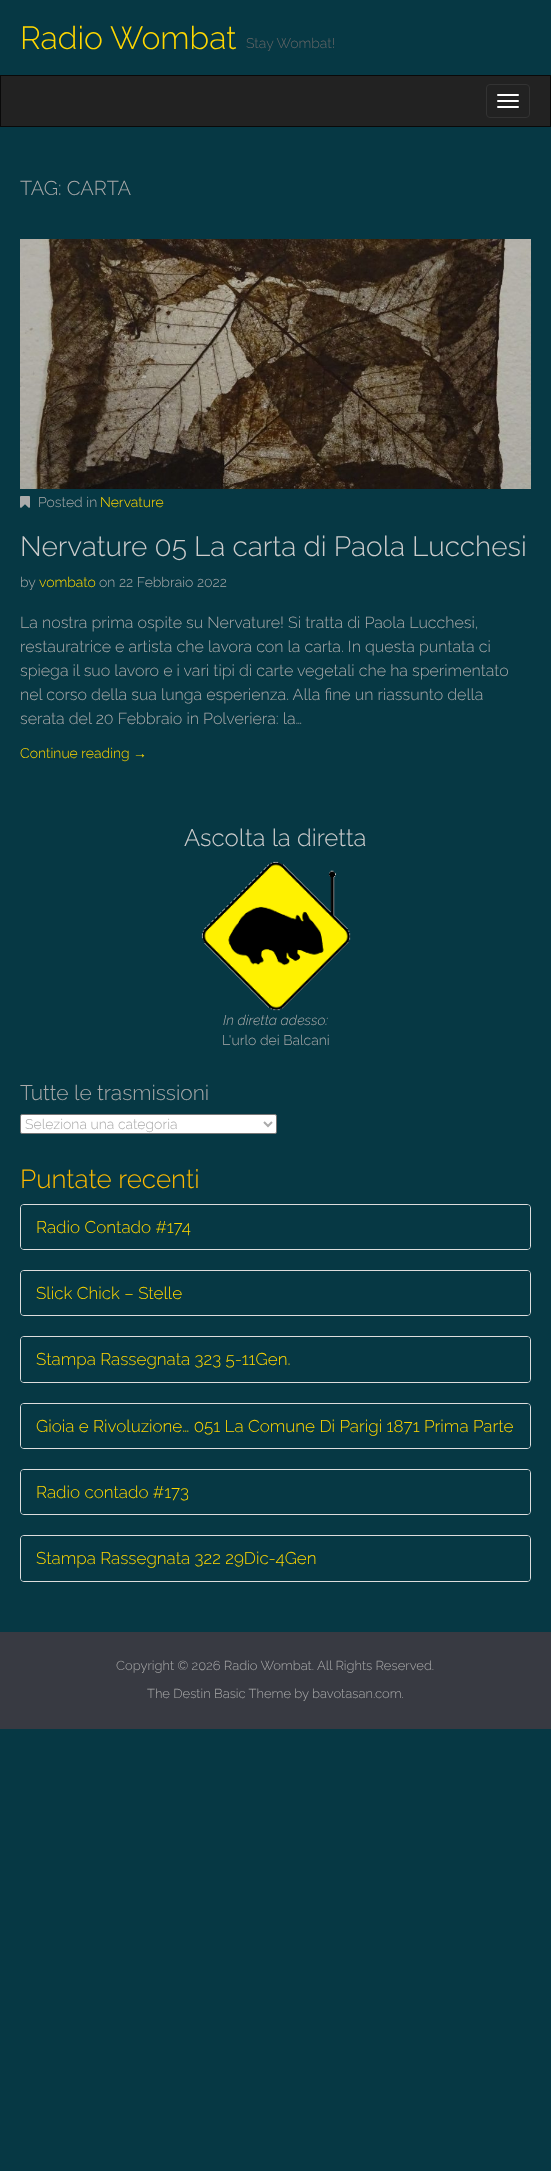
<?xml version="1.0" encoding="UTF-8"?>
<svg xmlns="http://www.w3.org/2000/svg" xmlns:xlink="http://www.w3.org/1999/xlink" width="551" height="2171">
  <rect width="100%" height="100%" fill="#063844" />
  <rect x="0.5" y="75.5" width="550" height="51" fill="#222222" stroke="#090909" />
  <rect x="486.5" y="84.5" width="43" height="33" rx="3.5" fill="none" stroke="#333333" />
  <rect x="497" y="94" width="22" height="2" rx="1" fill="#ffffff" />
  <rect x="497" y="100" width="22" height="2" rx="1" fill="#ffffff" />
  <rect x="497" y="106" width="22" height="2" rx="1" fill="#ffffff" />
  <image x="20" y="239" width="511" height="250" xlink:href="image1.png" />
  <image x="20" y="496" width="10" height="12" xlink:href="image2.png" />
  <image x="201" y="861" width="150" height="150" xlink:href="image3.png" />
  <rect x="20.5" y="1114.5" width="256" height="19" rx="1.5" fill="#ffffff" stroke="#767676" />
  <path d="M 264 1122 l 4 4 l 4 -4" fill="none" stroke="#aaaaaa" stroke-width="2" />
  <rect x="20.5" y="1204.5" width="510" height="45" rx="3.5" fill="none" stroke="#dddddd" />
  <rect x="21" y="1205" width="509" height="44" rx="3" fill="#063844" />
  <rect x="20.5" y="1270.5" width="510" height="45" rx="3.5" fill="none" stroke="#dddddd" />
  <rect x="21" y="1271" width="509" height="44" rx="3" fill="#063844" />
  <rect x="20.5" y="1336.5" width="510" height="46" rx="3.5" fill="none" stroke="#dddddd" />
  <rect x="21" y="1337" width="509" height="45" rx="3" fill="#063844" />
  <rect x="20.5" y="1403.5" width="510" height="45" rx="3.5" fill="none" stroke="#dddddd" />
  <rect x="21" y="1404" width="509" height="44" rx="3" fill="#063844" />
  <rect x="20.5" y="1469.5" width="510" height="45" rx="3.5" fill="none" stroke="#dddddd" />
  <rect x="21" y="1470" width="509" height="44" rx="3" fill="#063844" />
  <rect x="20.5" y="1535.5" width="510" height="46" rx="3.5" fill="none" stroke="#dddddd" />
  <rect x="21" y="1536" width="509" height="45" rx="3" fill="#063844" />
  <rect y="1632" width="551" height="97" fill="#383a42" />
  <text x="20" y="49" style="font-family: Raleway; font-size: 32px; font-weight: 300; fill: #ffd700">Radio Wombat</text>
  <text x="246" y="48" style="font-family: Raleway; font-size: 14px; font-weight: 300; fill: #666666">Stay Wombat!</text>
  <text x="20" y="195" style="font-family: Raleway; font-size: 20px; font-weight: 300; fill: #aaaaaa">TAG: CARTA</text>
  <text x="38" y="507" style="font-family: Raleway; font-size: 14px; font-weight: 300; fill: #aaaaaa">Posted in</text>
  <text x="100" y="507" style="font-family: Raleway; font-size: 14px; font-weight: 300; fill: #ffd700">Nervature</text>
  <text x="20" y="556" style="font-family: Raleway; font-size: 28px; font-weight: 300; fill: #cccccc">Nervature 05 La carta di Paola Lucchesi</text>
  <text x="20" y="587" style="font-family: Raleway; font-size: 14px; font-weight: 300; fill: #aaaaaa">by</text>
  <text x="39" y="587" style="font-family: Raleway; font-size: 14px; font-weight: 300; fill: #ffd700">vombato</text>
  <text x="99" y="587" style="font-family: Raleway; font-size: 14px; font-weight: 300; fill: #aaaaaa">on 22 Febbraio 2022</text>
  <text x="20" y="628" style="font-family: Raleway; font-size: 16px; font-weight: 300; fill: #aaaaaa">La nostra prima ospite su Nervature! Si tratta di Paola Lucchesi,</text>
  <text x="20" y="652" style="font-family: Raleway; font-size: 16px; font-weight: 300; fill: #aaaaaa">restauratrice e artista che lavora con la carta. In questa puntata ci</text>
  <text x="20" y="676" style="font-family: Raleway; font-size: 16px; font-weight: 300; fill: #aaaaaa">spiega il suo lavoro e i vari tipi di carte vegetali che ha sperimentato</text>
  <text x="20" y="700" style="font-family: Raleway; font-size: 16px; font-weight: 300; fill: #aaaaaa">nel corso della sua lunga esperienza. Alla fine un riassunto della</text>
  <text x="20" y="724" style="font-family: Raleway; font-size: 16px; font-weight: 300; fill: #aaaaaa">serata del 20 Febbraio in Polveriera: la…</text>
  <text x="20" y="758" style="font-family: Raleway; font-size: 14px; font-weight: 300; fill: #ffd700">Continue reading</text>
  <text x="133" y="758" style="font-family: Liberation Sans; font-size: 14px; fill: #ffd700">→</text>
  <text x="184" y="846" style="font-family: Raleway; font-size: 24px; font-weight: 300; fill: #cccccc">Ascolta la diretta</text>
  <text x="223" y="1025" style="font-family: Raleway; font-size: 14px; font-weight: 300; font-style: italic; fill: #aaaaaa">In diretta adesso:</text>
  <text x="222" y="1045" style="font-family: Raleway; font-size: 14px; font-weight: 300; fill: #aaaaaa">L'urlo dei Balcani</text>
  <text x="20" y="1100" style="font-family: Raleway; font-size: 21px; font-weight: 300; fill: #aaaaaa">Tutte le trasmissioni</text>
  <text x="25" y="1129" style="font-family: Raleway; font-size: 14px; font-weight: 300; fill: #aaaaaa">Seleziona una categoria</text>
  <text x="20" y="1188" style="font-family: Raleway; font-size: 26px; font-weight: 300; fill: #fcb900">Puntate recenti</text>
  <text x="36" y="1233" style="font-family: Raleway; font-size: 17px; font-weight: 300; fill: #ffd700">Radio Contado #174</text>
  <text x="36" y="1299" style="font-family: Raleway; font-size: 17px; font-weight: 300; fill: #ffd700">Slick Chick – Stelle</text>
  <text x="36" y="1365" style="font-family: Raleway; font-size: 17px; font-weight: 300; fill: #ffd700">Stampa Rassegnata 323 5-11Gen.</text>
  <text x="36" y="1432" style="font-family: Raleway; font-size: 17px; font-weight: 300; fill: #ffd700">Gioia e Rivoluzione… 051 La Comune Di Parigi 1871 Prima Parte</text>
  <text x="36" y="1498" style="font-family: Raleway; font-size: 17px; font-weight: 300; fill: #ffd700">Radio contado #173</text>
  <text x="36" y="1564" style="font-family: Raleway; font-size: 17px; font-weight: 300; fill: #ffd700">Stampa Rassegnata 322 29Dic-4Gen</text>
  <text x="116" y="1670" style="font-family: Raleway; font-size: 13px; font-weight: 300; fill: #aaaaaa">Copyright © 2026 Radio Wombat. All Rights Reserved.</text>
  <text x="147" y="1698" style="font-family: Raleway; font-size: 13px; font-weight: 300; fill: #aaaaaa">The Destin Basic Theme by bavotasan.com.</text>
</svg>
